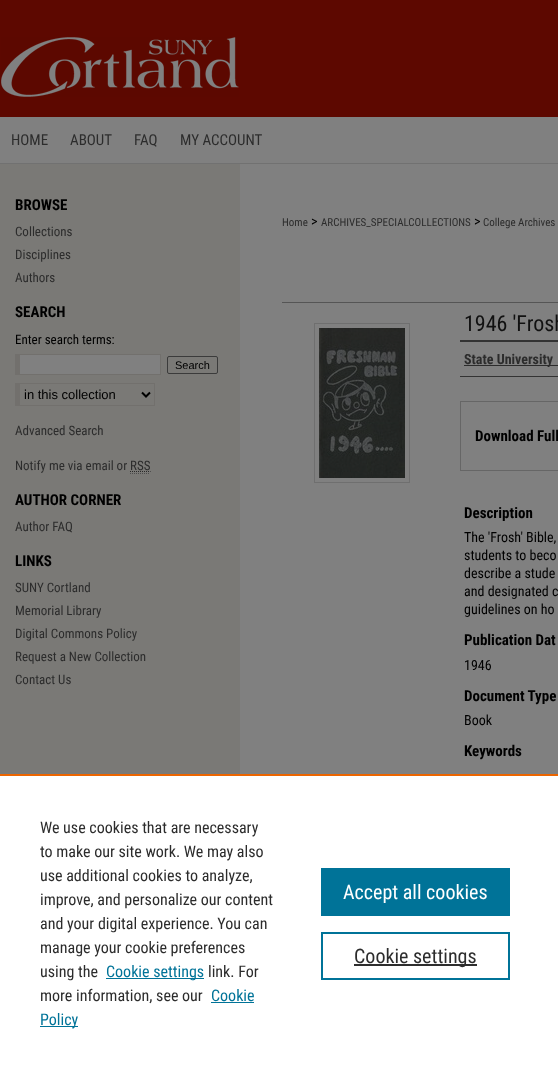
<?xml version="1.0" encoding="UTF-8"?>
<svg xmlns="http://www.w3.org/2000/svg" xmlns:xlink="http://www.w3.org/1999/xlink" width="558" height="1072">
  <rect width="100%" height="100%" fill="#808080" />
  <rect width="558" height="117" fill="#5d0800" />
  <image x="1" y="37" width="238" height="60" xlink:href="image1.png" />
  <rect y="163" width="558" height="1" fill="#717171" />
  <rect y="164" width="240" height="610" fill="#7a7976" />
  <rect x="20" y="355" width="140" height="19" fill="#808080" />
  <rect x="15" y="354" width="146" height="1" fill="#72706d" />
  <rect x="160" y="354" width="1" height="21" fill="#72706d" />
  <rect x="15" y="374" width="146" height="1" fill="#72706d" />
  <rect x="15" y="354" width="5" height="21" fill="#72706d" />
  <rect x="167.5" y="356.5" width="50" height="17" rx="1.5" fill="none" stroke="#3b3b3b" />
  <rect x="15" y="383" width="140" height="1" fill="#72706d" />
  <rect x="154" y="383" width="1" height="23" fill="#72706d" />
  <rect x="15" y="405" width="140" height="1" fill="#72706d" />
  <rect x="15" y="383" width="5" height="23" fill="#72706d" />
  <path d="M 142 392.5 l 4 4 l 4 -4" fill="none" stroke="#000000" stroke-width="2" />
  <path d="M 130 473.5 h 20" fill="none" stroke="#4d4d4d" stroke-dasharray="1 1" />
  <rect x="314.5" y="323.5" width="95" height="159" fill="none" stroke="#6f6f6f" />
  <image x="319" y="328" width="86" height="150" xlink:href="image2.png" />
  <rect x="282" y="302" width="276" height="1" fill="#555555" />
  <rect x="460" y="340" width="98" height="2" fill="#333333" />
  <rect x="460" y="376" width="98" height="1" fill="#333333" />
  <rect x="464" y="365" width="94" height="1" fill="#2c2c2c" />
  <rect x="460.5" y="401.5" width="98" height="69" fill="none" stroke="#666666" />
  <rect y="776" width="558" height="296" fill="#ffffff" />
  <rect y="774" width="558" height="2" fill="#eb6500" />
  <rect x="106" y="978" width="98" height="1" fill="#007398" />
  <rect x="211" y="1002" width="43" height="1" fill="#007398" />
  <rect x="40" y="1026" width="38" height="1" fill="#007398" />
  <rect x="321" y="868" width="189" height="48" fill="#007398" />
  <rect x="322" y="933" width="187" height="46" fill="none" stroke="#007398" stroke-width="2" />
  <rect x="354" y="964" width="123" height="2" fill="#2e2e2e" />
  <text x="11" y="145" style="font-family: Roboto Condensed; font-size: 15px; fill: #2c2c2c">HOME</text>
  <text x="70" y="145" style="font-family: Roboto Condensed; font-size: 15px; fill: #2c2c2c">ABOUT</text>
  <text x="134" y="145" style="font-family: Roboto Condensed; font-size: 15px; fill: #2c2c2c">FAQ</text>
  <text x="180" y="145" style="font-family: Roboto Condensed; font-size: 15px; fill: #2c2c2c">MY ACCOUNT</text>
  <text x="15" y="210" style="font-family: Roboto Condensed; font-size: 15px; font-weight: bold; fill: #000000">BROWSE</text>
  <text x="15" y="236" style="font-family: Roboto Condensed; font-size: 13px; fill: #2c2c2c">Collections</text>
  <text x="15" y="259" style="font-family: Roboto Condensed; font-size: 13px; fill: #2c2c2c">Disciplines</text>
  <text x="15" y="282" style="font-family: Roboto Condensed; font-size: 13px; fill: #2c2c2c">Authors</text>
  <text x="15" y="317" style="font-family: Roboto Condensed; font-size: 15px; font-weight: bold; fill: #000000">SEARCH</text>
  <text x="15" y="344" style="font-family: Roboto Condensed; font-size: 13px; fill: #000000">Enter search terms:</text>
  <text x="175" y="369" style="font-family: Liberation Sans; font-size: 11px; fill: #000000">Search</text>
  <text x="24" y="399" style="font-family: Liberation Sans; font-size: 13px; fill: #000000">in this collection</text>
  <text x="15" y="435" style="font-family: Roboto Condensed; font-size: 13px; fill: #2c2c2c">Advanced Search</text>
  <text x="15" y="470" style="font-family: Roboto Condensed; font-size: 13px; fill: #2c2c2c">Notify me via email or RSS</text>
  <path d="M 130 471.5 h 20.5" fill="none" stroke="#282828" stroke-dasharray="1 1" />
  <text x="15" y="505" style="font-family: Roboto Condensed; font-size: 15px; font-weight: bold; fill: #000000">AUTHOR CORNER</text>
  <text x="15" y="531" style="font-family: Roboto Condensed; font-size: 13px; fill: #2c2c2c">Author FAQ</text>
  <text x="15" y="566" style="font-family: Roboto Condensed; font-size: 15px; font-weight: bold; fill: #000000">LINKS</text>
  <text x="15" y="592" style="font-family: Roboto Condensed; font-size: 13px; fill: #2c2c2c">SUNY Cortland</text>
  <text x="15" y="615" style="font-family: Roboto Condensed; font-size: 13px; fill: #2c2c2c">Memorial Library</text>
  <text x="15" y="638" style="font-family: Roboto Condensed; font-size: 13px; fill: #2c2c2c">Digital Commons Policy</text>
  <text x="15" y="661" style="font-family: Roboto Condensed; font-size: 13px; fill: #2c2c2c">Request a New Collection</text>
  <text x="15" y="684" style="font-family: Roboto Condensed; font-size: 13px; fill: #2c2c2c">Contact Us</text>
  <text x="282" y="226" style="font-family: Roboto Condensed; font-size: 11px; fill: #2c2c2c">Home</text>
  <text x="311" y="226" style="font-family: Roboto Condensed; font-size: 14px; fill: #000000">&gt;</text>
  <text x="321" y="226" style="font-family: Roboto Condensed; font-size: 11px; fill: #2c2c2c">ARCHIVES_SPECIALCOLLECTIONS</text>
  <text x="474" y="226" style="font-family: Roboto Condensed; font-size: 14px; fill: #000000">&gt;</text>
  <text x="483" y="226" style="font-family: Roboto Condensed; font-size: 11px; fill: #2c2c2c">College Archives</text>
  <text x="464" y="331" style="font-family: Roboto Condensed; font-size: 22px; fill: #111111">1946 'Frosh</text>
  <text x="464" y="364" style="font-family: Roboto Condensed; font-size: 14px; font-weight: bold; fill: #2c2c2c">State University</text>
  <text x="475" y="441" style="font-family: Roboto Condensed; font-size: 15px; font-weight: bold; fill: #000000">Download Full</text>
  <text x="464" y="518" style="font-family: Roboto Condensed; font-size: 15px; font-weight: bold; fill: #000000">Description</text>
  <text x="464" y="542" style="font-family: Roboto Condensed; font-size: 14px; fill: #000000">The 'Frosh' Bible,</text>
  <text x="464" y="560" style="font-family: Roboto Condensed; font-size: 14px; fill: #000000">students to beco</text>
  <text x="464" y="578" style="font-family: Roboto Condensed; font-size: 14px; fill: #000000">describe a stude</text>
  <text x="464" y="596" style="font-family: Roboto Condensed; font-size: 14px; fill: #000000">and designated c</text>
  <text x="464" y="614" style="font-family: Roboto Condensed; font-size: 14px; fill: #000000">guidelines on ho</text>
  <text x="464" y="645" style="font-family: Roboto Condensed; font-size: 15px; font-weight: bold; fill: #000000">Publication Dat</text>
  <text x="464" y="670" style="font-family: Roboto Condensed; font-size: 14px; fill: #000000">1946</text>
  <text x="464" y="701" style="font-family: Roboto Condensed; font-size: 15px; font-weight: bold; fill: #000000">Document Type</text>
  <text x="464" y="725" style="font-family: Roboto Condensed; font-size: 14px; fill: #000000">Book</text>
  <text x="464" y="756" style="font-family: Roboto Condensed; font-size: 15px; font-weight: bold; fill: #000000">Keywords</text>
  <text x="40" y="833" style="font-family: Roboto Condensed; font-size: 16px; fill: #2c2c2c">We use cookies that are necessary</text>
  <text x="40" y="857" style="font-family: Roboto Condensed; font-size: 16px; fill: #2c2c2c">to make our site work. We may also</text>
  <text x="40" y="881" style="font-family: Roboto Condensed; font-size: 16px; fill: #2c2c2c">use additional cookies to analyze,</text>
  <text x="40" y="905" style="font-family: Roboto Condensed; font-size: 16px; fill: #2c2c2c">improve, and personalize our content</text>
  <text x="40" y="929" style="font-family: Roboto Condensed; font-size: 16px; fill: #2c2c2c">and your digital experience. You can</text>
  <text x="40" y="953" style="font-family: Roboto Condensed; font-size: 16px; fill: #2c2c2c">manage your cookie preferences</text>
  <text x="40" y="977" style="font-family: Roboto Condensed; font-size: 16px; fill: #2c2c2c">using the</text>
  <text x="106" y="977" style="font-family: Roboto Condensed; font-size: 16px; fill: #007398">Cookie settings</text>
  <text x="208" y="977" style="font-family: Roboto Condensed; font-size: 16px; fill: #2c2c2c">link. For</text>
  <text x="40" y="1001" style="font-family: Roboto Condensed; font-size: 16px; fill: #2c2c2c">more information, see our</text>
  <text x="211" y="1001" style="font-family: Roboto Condensed; font-size: 16px; fill: #007398">Cookie</text>
  <text x="40" y="1025" style="font-family: Roboto Condensed; font-size: 16px; fill: #007398">Policy</text>
  <text x="343" y="899" style="font-family: Roboto Condensed; font-size: 20px; fill: #ffffff">Accept all cookies</text>
  <text x="354" y="963" style="font-family: Roboto Condensed; font-size: 20px; fill: #2c2c2c">Cookie settings</text>
</svg>
